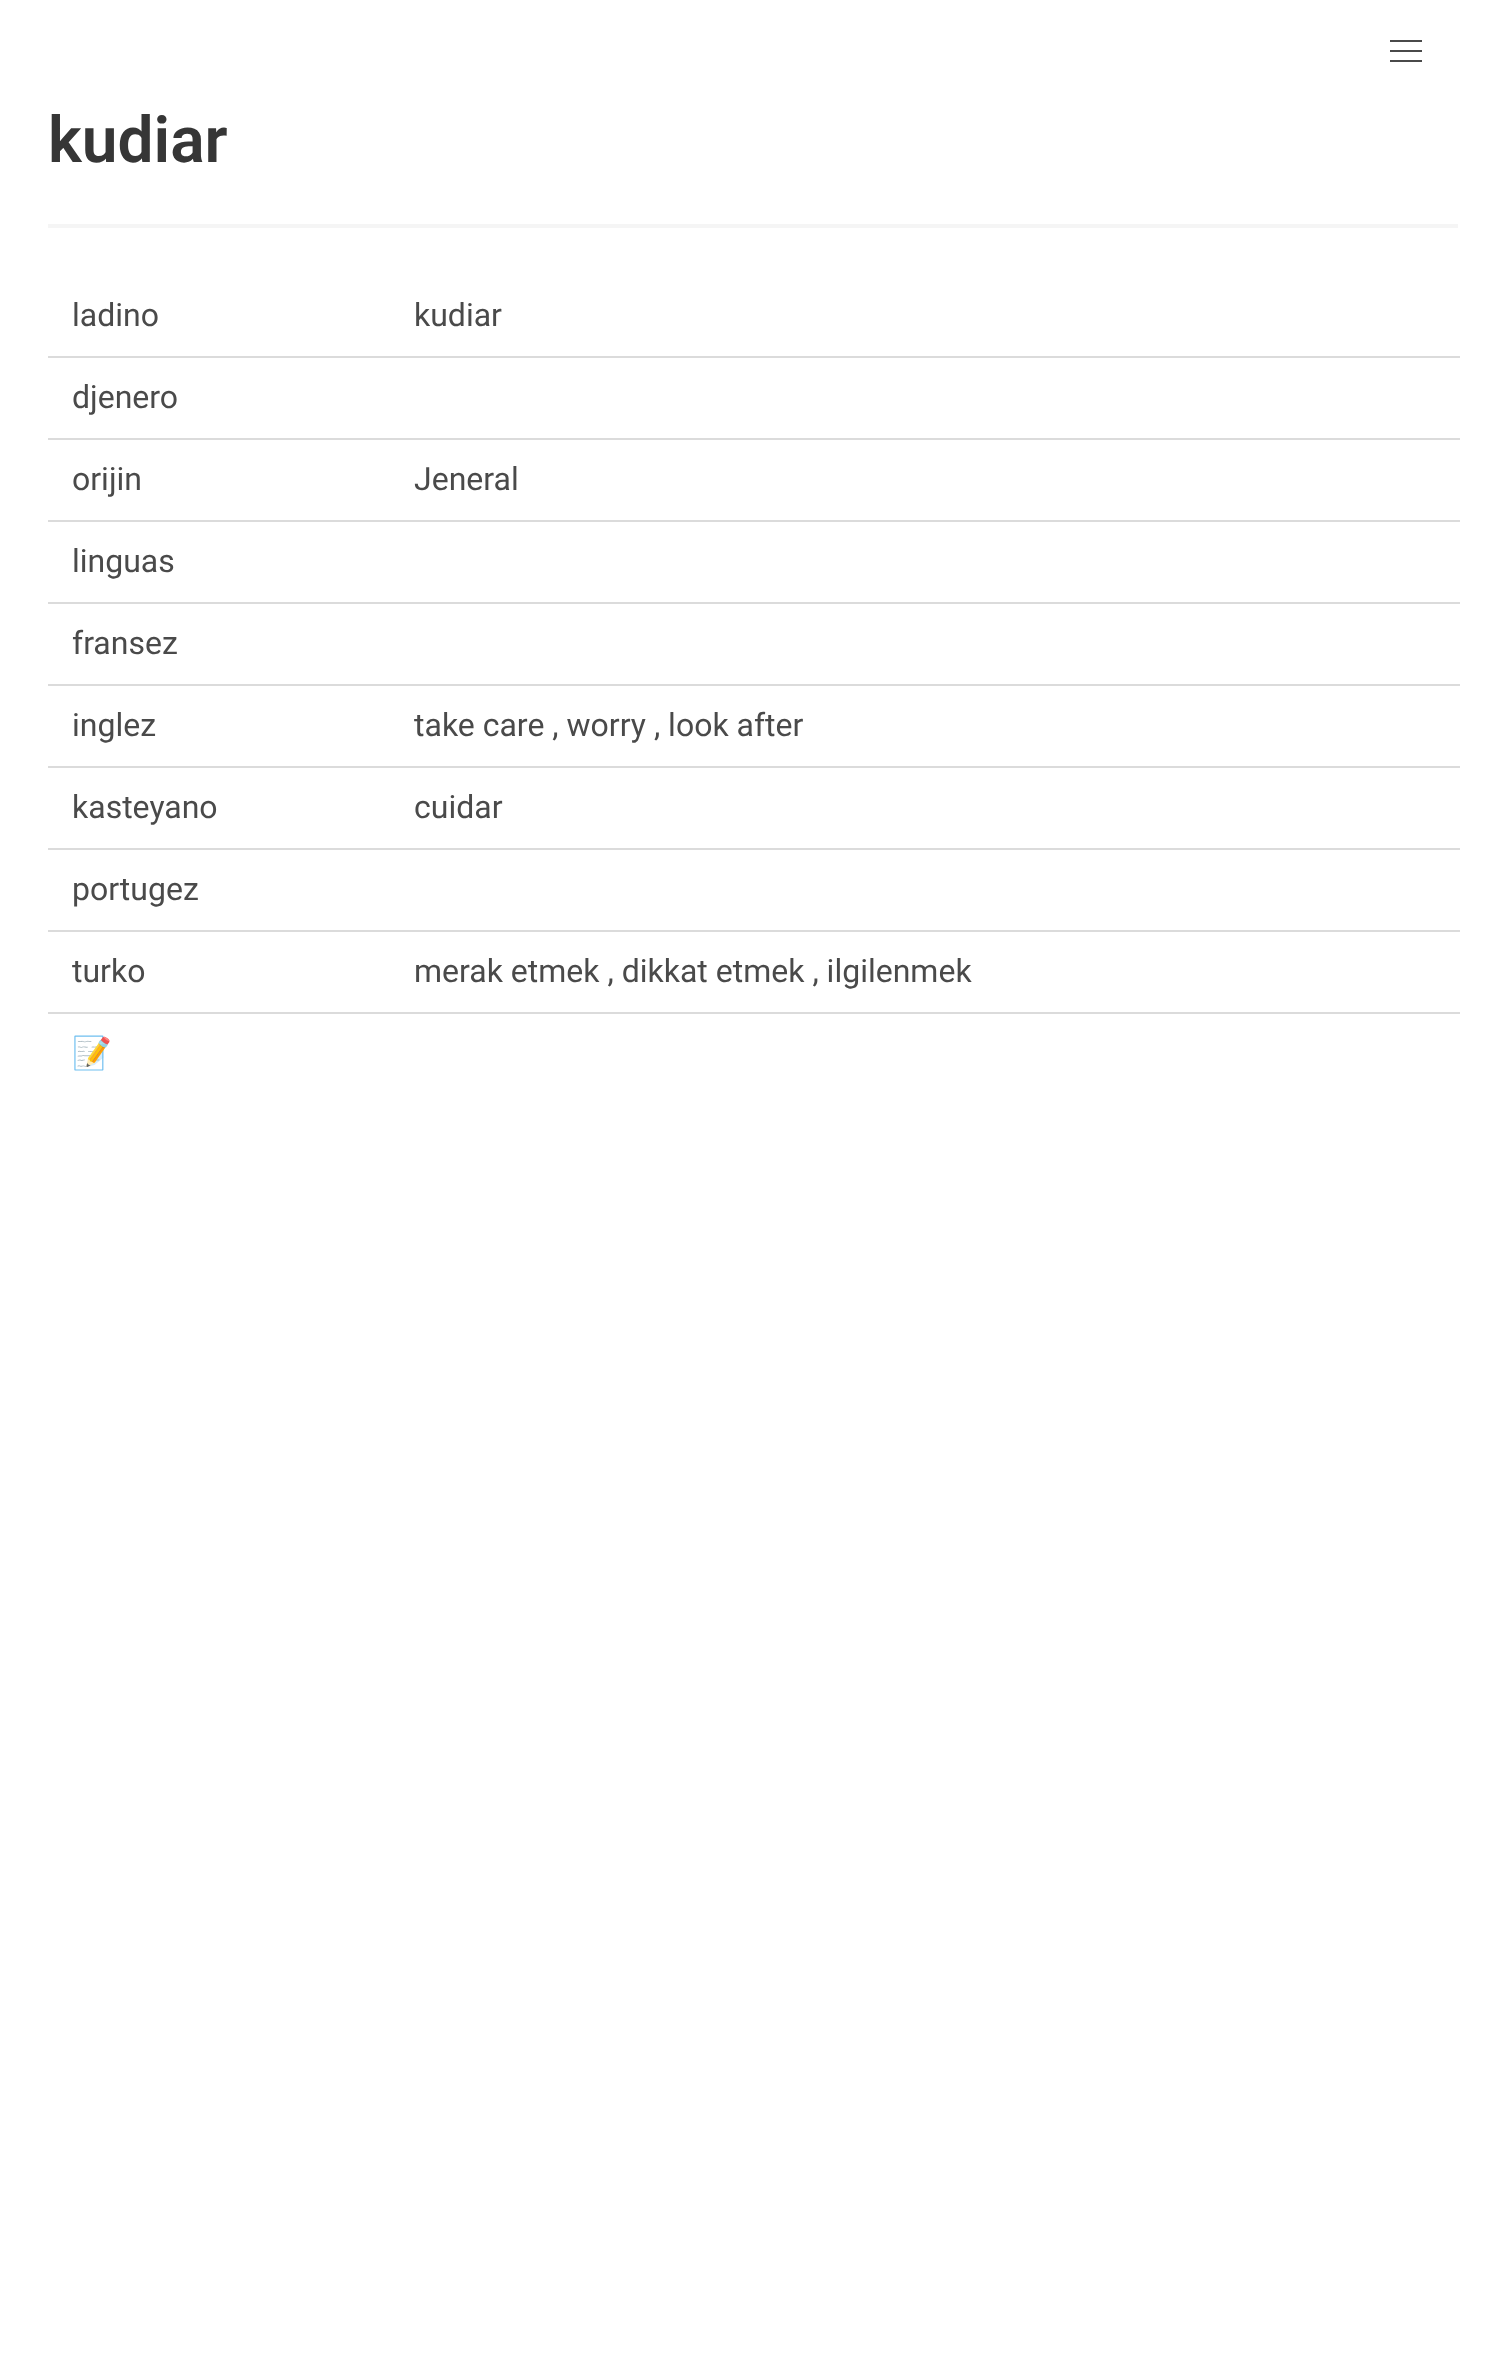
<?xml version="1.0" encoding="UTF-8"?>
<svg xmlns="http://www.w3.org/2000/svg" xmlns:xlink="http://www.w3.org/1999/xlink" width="1506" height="2354">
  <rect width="100%" height="100%" fill="#ffffff" />
  <rect x="1390" y="40" width="32" height="2" fill="#4a4a4a" />
  <rect x="1390" y="50" width="32" height="2" fill="#4a4a4a" />
  <rect x="1390" y="60" width="32" height="2" fill="#4a4a4a" />
  <rect x="48" y="224" width="1410" height="4" fill="#f5f5f5" />
  <rect x="48" y="356" width="1412" height="2" fill="#dbdbdb" />
  <rect x="48" y="438" width="1412" height="2" fill="#dbdbdb" />
  <rect x="48" y="520" width="1412" height="2" fill="#dbdbdb" />
  <rect x="48" y="602" width="1412" height="2" fill="#dbdbdb" />
  <rect x="48" y="684" width="1412" height="2" fill="#dbdbdb" />
  <rect x="48" y="766" width="1412" height="2" fill="#dbdbdb" />
  <rect x="48" y="848" width="1412" height="2" fill="#dbdbdb" />
  <rect x="48" y="930" width="1412" height="2" fill="#dbdbdb" />
  <rect x="48" y="1012" width="1412" height="2" fill="#dbdbdb" />
  <text x="48" y="162" style="font-family: Roboto; font-size: 64px; font-weight: 600; fill: #363636">kudiar</text>
  <text x="72" y="326" style="font-family: Roboto; font-size: 32px; fill: #4a4a4a">ladino</text>
  <text x="414" y="326" style="font-family: Roboto; font-size: 32px; fill: #4a4a4a">kudiar</text>
  <text x="72" y="408" style="font-family: Roboto; font-size: 32px; fill: #4a4a4a">djenero</text>
  <text x="72" y="490" style="font-family: Roboto; font-size: 32px; fill: #4a4a4a">orijin</text>
  <text x="414" y="490" style="font-family: Roboto; font-size: 32px; fill: #4a4a4a">Jeneral</text>
  <text x="72" y="572" style="font-family: Roboto; font-size: 32px; fill: #4a4a4a">linguas</text>
  <text x="72" y="654" style="font-family: Roboto; font-size: 32px; fill: #4a4a4a">fransez</text>
  <text x="72" y="736" style="font-family: Roboto; font-size: 32px; fill: #4a4a4a">inglez</text>
  <text x="414" y="736" style="font-family: Roboto; font-size: 32px; fill: #4a4a4a">take care , worry , look after</text>
  <text x="72" y="818" style="font-family: Roboto; font-size: 32px; fill: #4a4a4a">kasteyano</text>
  <text x="414" y="818" style="font-family: Roboto; font-size: 32px; fill: #4a4a4a">cuidar</text>
  <text x="72" y="900" style="font-family: Roboto; font-size: 32px; fill: #4a4a4a">portugez</text>
  <text x="72" y="982" style="font-family: Roboto; font-size: 32px; fill: #4a4a4a">turko</text>
  <text x="414" y="982" style="font-family: Roboto; font-size: 32px; fill: #4a4a4a">merak etmek , dikkat etmek , ilgilenmek</text>
  <text x="72" y="1064" style="font-family: Noto Color Emoji; font-size: 32px; fill: #485fc7">📝</text>
</svg>
